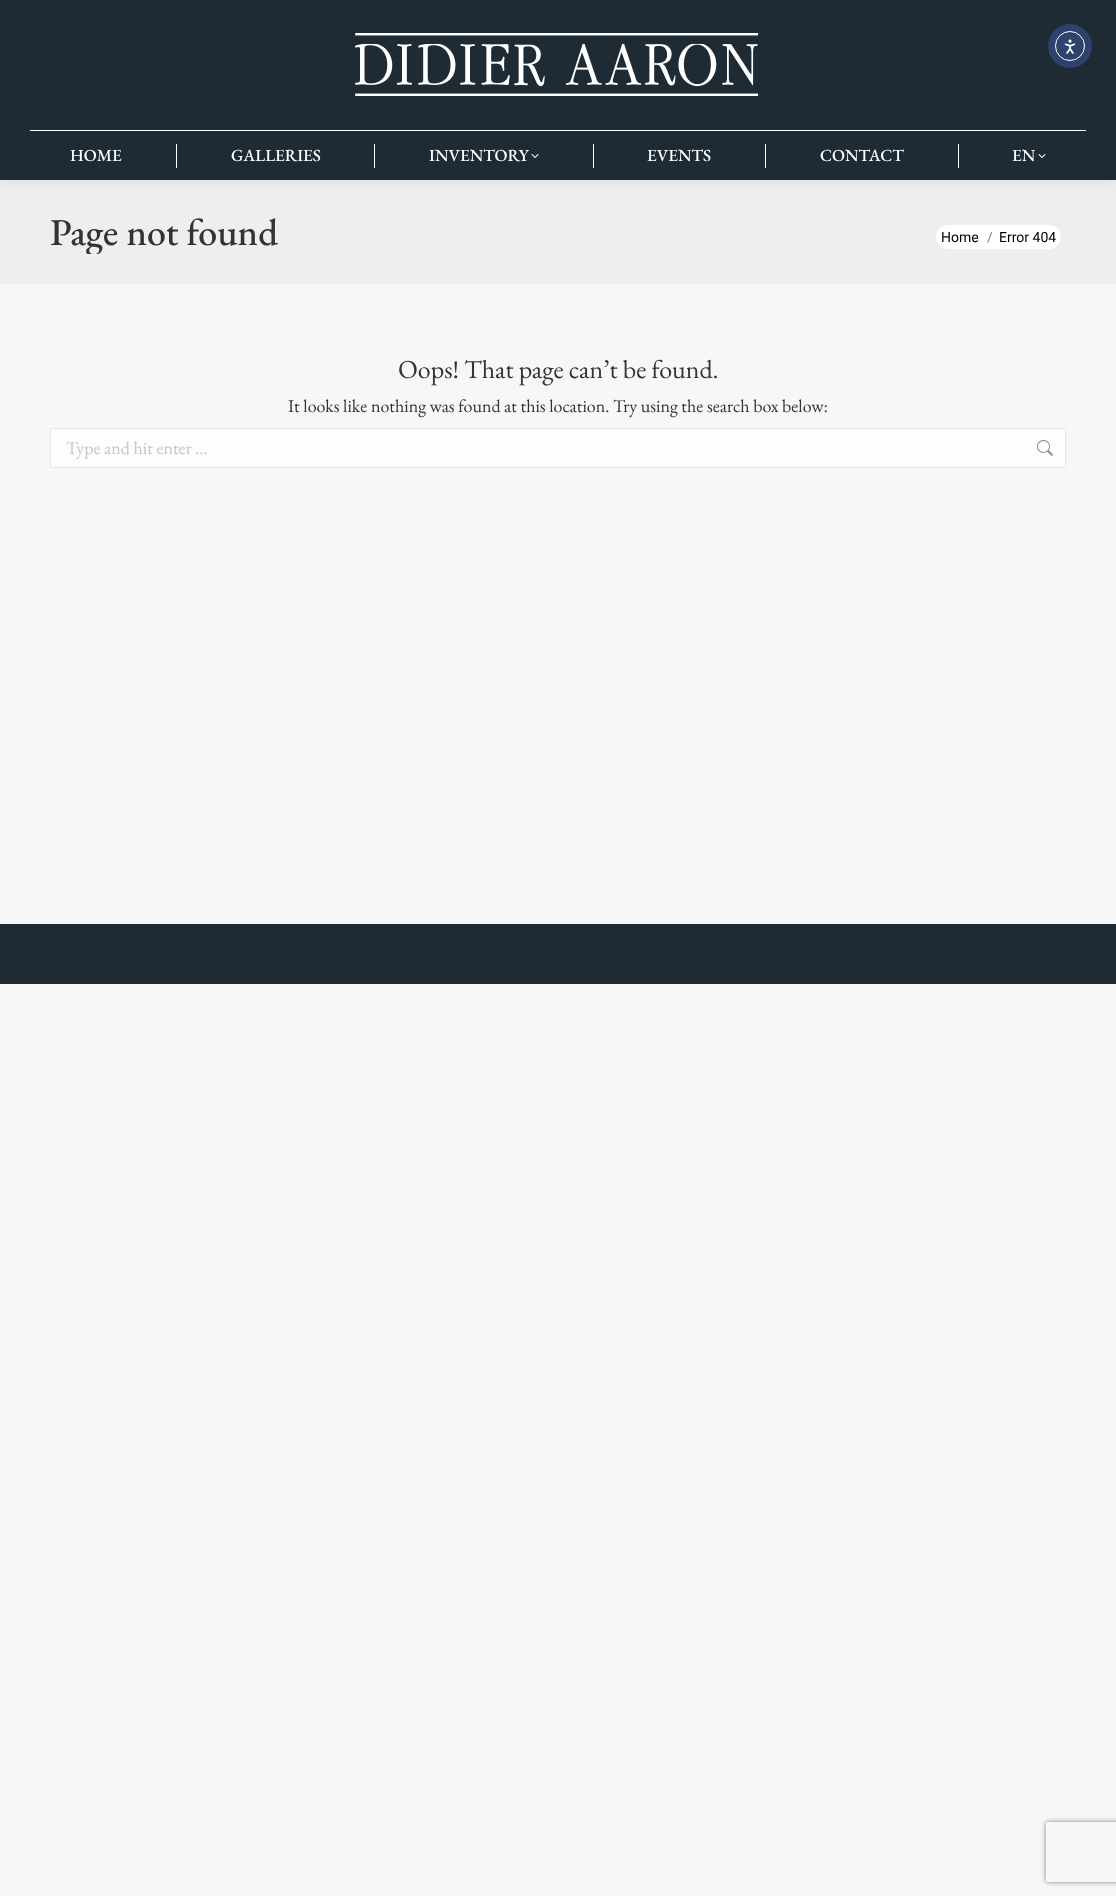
<?xml version="1.0" encoding="UTF-8"?>
<svg xmlns="http://www.w3.org/2000/svg" xmlns:xlink="http://www.w3.org/1999/xlink" width="1116" height="1896">
  <defs>
    <clipPath id="clip1"><path d="M 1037 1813 h 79 v 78 h -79 z m 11 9 h 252 c 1 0 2 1 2 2 v 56 c 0 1 -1 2 -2 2 h -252 c -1 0 -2 -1 -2 -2 v -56 c 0 -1 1 -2 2 -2 z" clip-rule="evenodd" /></clipPath>
    <clipPath id="clip2"><rect x="50" y="210" width="228" height="44" /></clipPath>
    <clipPath id="clip3"><rect x="66" y="436" width="969" height="23" /></clipPath>
  </defs>
  <rect width="100%" height="100%" fill="#f7f7f7" />
  <rect y="180" width="1116" height="104" fill="#eeeeee" />
  <rect x="-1" y="-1" width="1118" height="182" fill="#000000" fill-opacity="0.07" filter="blur(7.5px)" />
  <rect width="1116" height="180" fill="#1e2b35" />
  <circle cx="1070" cy="46" r="22" fill="#2e426b" />
  <circle cx="1070" cy="46" r="14.5" fill="none" stroke="#ffffff" />
  <image x="1064" y="39" width="12" height="15" xlink:href="image1.png" />
  <image x="355" y="33" width="403" height="63" xlink:href="image2.png" />
  <rect x="30" y="130" width="1056" height="1" fill="#ffffff" />
  <rect x="176" y="144" width="1" height="24" fill="#ffffff" />
  <rect x="374" y="144" width="1" height="24" fill="#ffffff" />
  <image x="531" y="154" width="8" height="4" xlink:href="image3.png" />
  <rect x="593" y="144" width="1" height="24" fill="#ffffff" />
  <rect x="765" y="144" width="1" height="24" fill="#ffffff" />
  <rect x="958" y="144" width="1" height="24" fill="#ffffff" />
  <image x="1038" y="154" width="8" height="4" xlink:href="image3.png" />
  <rect x="936" y="225" width="125" height="24" rx="12" fill="#ffffff" />
  <rect x="50.5" y="428.5" width="1015" height="39" rx="1.5" fill="#fdfdfd" stroke="#e7e7e7" />
  <image x="1037" y="440" width="16" height="16" xlink:href="image4.png" />
  <rect y="924" width="1116" height="60" fill="#1e2b35" />
  <g clip-path="url(#clip1)">
    <rect x="1046" y="1822" width="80" height="60" rx="2" fill="#808080" filter="blur(2.5px)" />
  </g>
  <text x="70" y="161" style="font-family: EB Garamond; font-size: 17px; font-weight: 500; fill: #ffffff">HOME</text>
  <text x="231" y="161" style="font-family: EB Garamond; font-size: 17px; font-weight: 500; fill: #ffffff">GALLERIES</text>
  <text x="429" y="161" style="font-family: EB Garamond; font-size: 17px; font-weight: 500; fill: #ffffff">INVENTORY</text>
  <text x="647" y="161" style="font-family: EB Garamond; font-size: 17px; font-weight: 500; fill: #ffffff">EVENTS</text>
  <text x="820" y="161" style="font-family: EB Garamond; font-size: 17px; font-weight: 500; fill: #ffffff">CONTACT</text>
  <text x="1012" y="161" style="font-family: EB Garamond; font-size: 17px; font-weight: 500; fill: #ffffff">EN</text>
  <g clip-path="url(#clip2)">
    <text x="50" y="245" style="font-family: EB Garamond; font-size: 38px; font-weight: 500; fill: #333333">Page not found</text>
  </g>
  <text x="941" y="242" style="font-family: Roboto; font-size: 14px; fill: #000000">Home</text>
  <text x="987" y="242" style="font-family: Roboto; font-size: 14px; fill: #808080">/</text>
  <text x="999" y="242" style="font-family: Roboto; font-size: 14px; fill: #000000">Error 404</text>
  <text x="398" y="378" style="font-family: EB Garamond; font-size: 26px; fill: #333333">Oops! That page can’t be found.</text>
  <text x="288" y="412" style="font-family: EB Garamond; font-size: 18px; fill: #333333">It looks like nothing was found at this location. Try using the search box below:</text>
  <g clip-path="url(#clip3)">
    <text x="66" y="454" style="font-family: EB Garamond; font-size: 18px; fill: #c4c5c9">Type and hit enter …</text>
  </g>
</svg>
